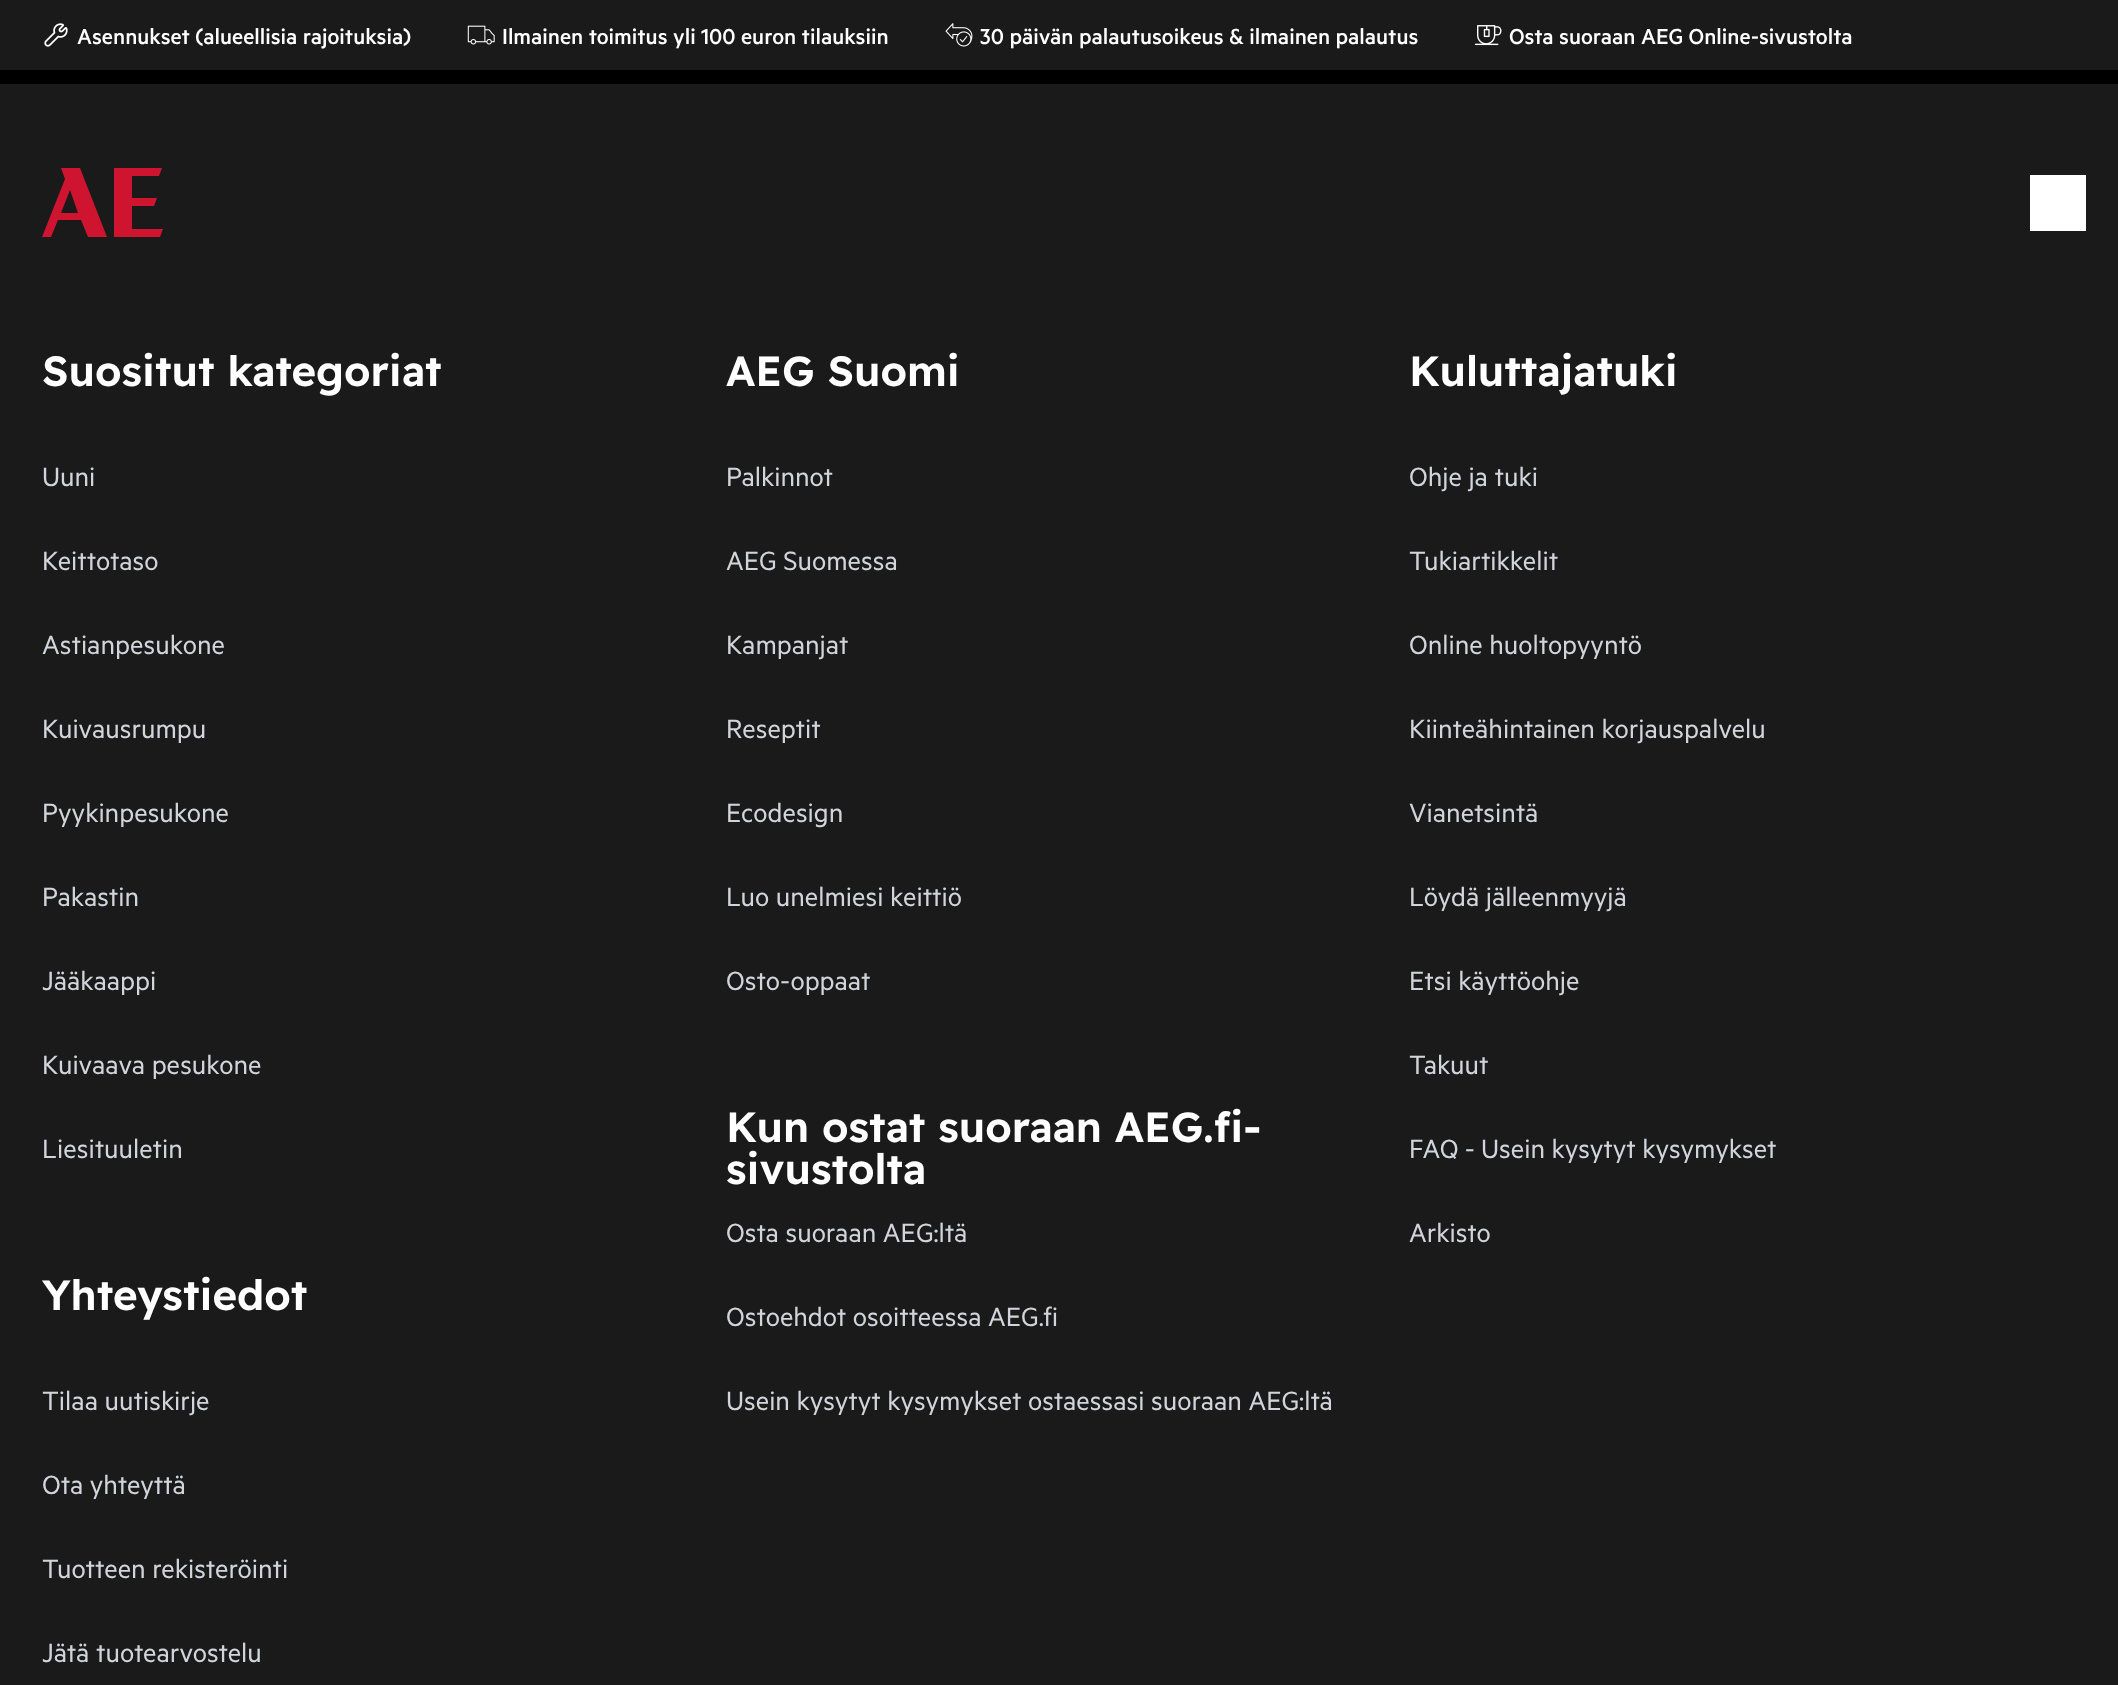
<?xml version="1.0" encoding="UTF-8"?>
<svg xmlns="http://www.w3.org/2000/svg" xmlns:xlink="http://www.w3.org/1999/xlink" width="2118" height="1685">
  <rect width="100%" height="100%" fill="#1a1a1a" />
  <image x="44" y="23" width="24" height="24" xlink:href="image1.png" />
  <image x="467" y="25" width="28" height="20" xlink:href="image2.png" />
  <image x="945" y="23" width="28" height="24" xlink:href="image3.png" />
  <image x="1474" y="25" width="28" height="21" xlink:href="image4.png" />
  <rect y="70" width="2118" height="14" fill="#000000" />
  <path d="M 61 168 l 4 11 l -23 58 h 9 l 7 -17 h 23 l 7 17 h 19 l -27 -69 z m 0 45 l 9 -23 l 8 23 z" fill="#cf1430" />
  <path d="M 132 206 h 22 l 3 -8 h -25 v -22 h 27 l 3 -8 h -48 v 69 h 46 l 3 -8 h -31 z" fill="#cf1430" />
  <rect x="2030" y="175" width="56" height="56" fill="#ffffff" />
  <text x="77" y="44" style="font-family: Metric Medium; font-size: 24.5px; font-weight: 500; fill: #ffffff">Asennukset (alueellisia rajoituksia)</text>
  <text x="502" y="44" style="font-family: Metric Medium; font-size: 24.5px; font-weight: 500; fill: #ffffff">Ilmainen toimitus yli 100 euron tilauksiin</text>
  <text x="980" y="44" style="font-family: Metric Medium; font-size: 24.5px; font-weight: 500; fill: #ffffff">30 päivän palautusoikeus &amp; ilmainen palautus</text>
  <text x="1509" y="44" style="font-family: Metric Medium; font-size: 24.5px; font-weight: 500; fill: #ffffff">Osta suoraan AEG Online-sivustolta</text>
  <text x="42" y="386" style="font-family: Readex Pro; font-size: 42px; font-weight: 600; fill: #ffffff">Suositut kategoriat</text>
  <text x="726" y="386" style="font-family: Readex Pro; font-size: 42px; font-weight: 600; fill: #ffffff">AEG Suomi</text>
  <text x="1409" y="386" style="font-family: Readex Pro; font-size: 42px; font-weight: 600; fill: #ffffff">Kuluttajatuki</text>
  <text x="42" y="486" style="font-family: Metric; font-size: 29.75px; fill: #d1d5db">Uuni</text>
  <text x="726" y="486" style="font-family: Metric; font-size: 29.75px; fill: #d1d5db">Palkinnot</text>
  <text x="1409" y="486" style="font-family: Metric; font-size: 29.75px; fill: #d1d5db">Ohje ja tuki</text>
  <text x="42" y="570" style="font-family: Metric; font-size: 29.75px; fill: #d1d5db">Keittotaso</text>
  <text x="726" y="570" style="font-family: Metric; font-size: 29.75px; fill: #d1d5db">AEG Suomessa</text>
  <text x="1409" y="570" style="font-family: Metric; font-size: 29.75px; fill: #d1d5db">Tukiartikkelit</text>
  <text x="42" y="654" style="font-family: Metric; font-size: 29.75px; fill: #d1d5db">Astianpesukone</text>
  <text x="726" y="654" style="font-family: Metric; font-size: 29.75px; fill: #d1d5db">Kampanjat</text>
  <text x="1409" y="654" style="font-family: Metric; font-size: 29.75px; fill: #d1d5db">Online huoltopyyntö</text>
  <text x="42" y="738" style="font-family: Metric; font-size: 29.75px; fill: #d1d5db">Kuivausrumpu</text>
  <text x="726" y="738" style="font-family: Metric; font-size: 29.75px; fill: #d1d5db">Reseptit</text>
  <text x="1409" y="738" style="font-family: Metric; font-size: 29.75px; fill: #d1d5db">Kiinteähintainen korjauspalvelu</text>
  <text x="42" y="822" style="font-family: Metric; font-size: 29.75px; fill: #d1d5db">Pyykinpesukone</text>
  <text x="726" y="822" style="font-family: Metric; font-size: 29.75px; fill: #d1d5db">Ecodesign</text>
  <text x="1409" y="822" style="font-family: Metric; font-size: 29.75px; fill: #d1d5db">Vianetsintä</text>
  <text x="42" y="906" style="font-family: Metric; font-size: 29.75px; fill: #d1d5db">Pakastin</text>
  <text x="726" y="906" style="font-family: Metric; font-size: 29.75px; fill: #d1d5db">Luo unelmiesi keittiö</text>
  <text x="1409" y="906" style="font-family: Metric; font-size: 29.75px; fill: #d1d5db">Löydä jälleenmyyjä</text>
  <text x="42" y="990" style="font-family: Metric; font-size: 29.75px; fill: #d1d5db">Jääkaappi</text>
  <text x="726" y="990" style="font-family: Metric; font-size: 29.75px; fill: #d1d5db">Osto-oppaat</text>
  <text x="1409" y="990" style="font-family: Metric; font-size: 29.75px; fill: #d1d5db">Etsi käyttöohje</text>
  <text x="42" y="1074" style="font-family: Metric; font-size: 29.75px; fill: #d1d5db">Kuivaava pesukone</text>
  <text x="1409" y="1074" style="font-family: Metric; font-size: 29.75px; fill: #d1d5db">Takuut</text>
  <text x="42" y="1158" style="font-family: Metric; font-size: 29.75px; fill: #d1d5db">Liesituuletin</text>
  <text x="726" y="1142" style="font-family: Readex Pro; font-size: 42px; font-weight: 600; fill: #ffffff">Kun ostat suoraan AEG.fi-</text>
  <text x="726" y="1184" style="font-family: Readex Pro; font-size: 42px; font-weight: 600; fill: #ffffff">sivustolta</text>
  <text x="1409" y="1158" style="font-family: Metric; font-size: 29.75px; fill: #d1d5db">FAQ - Usein kysytyt kysymykset</text>
  <text x="726" y="1242" style="font-family: Metric; font-size: 29.75px; fill: #d1d5db">Osta suoraan AEG:ltä</text>
  <text x="1409" y="1242" style="font-family: Metric; font-size: 29.75px; fill: #d1d5db">Arkisto</text>
  <text x="42" y="1310" style="font-family: Readex Pro; font-size: 42px; font-weight: 600; fill: #ffffff">Yhteystiedot</text>
  <text x="726" y="1326" style="font-family: Metric; font-size: 29.75px; fill: #d1d5db">Ostoehdot osoitteessa AEG.fi</text>
  <text x="42" y="1410" style="font-family: Metric; font-size: 29.75px; fill: #d1d5db">Tilaa uutiskirje</text>
  <text x="726" y="1410" style="font-family: Metric; font-size: 29.75px; fill: #d1d5db">Usein kysytyt kysymykset ostaessasi suoraan AEG:ltä</text>
  <text x="42" y="1494" style="font-family: Metric; font-size: 29.75px; fill: #d1d5db">Ota yhteyttä</text>
  <text x="42" y="1578" style="font-family: Metric; font-size: 29.75px; fill: #d1d5db">Tuotteen rekisteröinti</text>
  <text x="42" y="1662" style="font-family: Metric; font-size: 29.75px; fill: #d1d5db">Jätä tuotearvostelu</text>
</svg>
